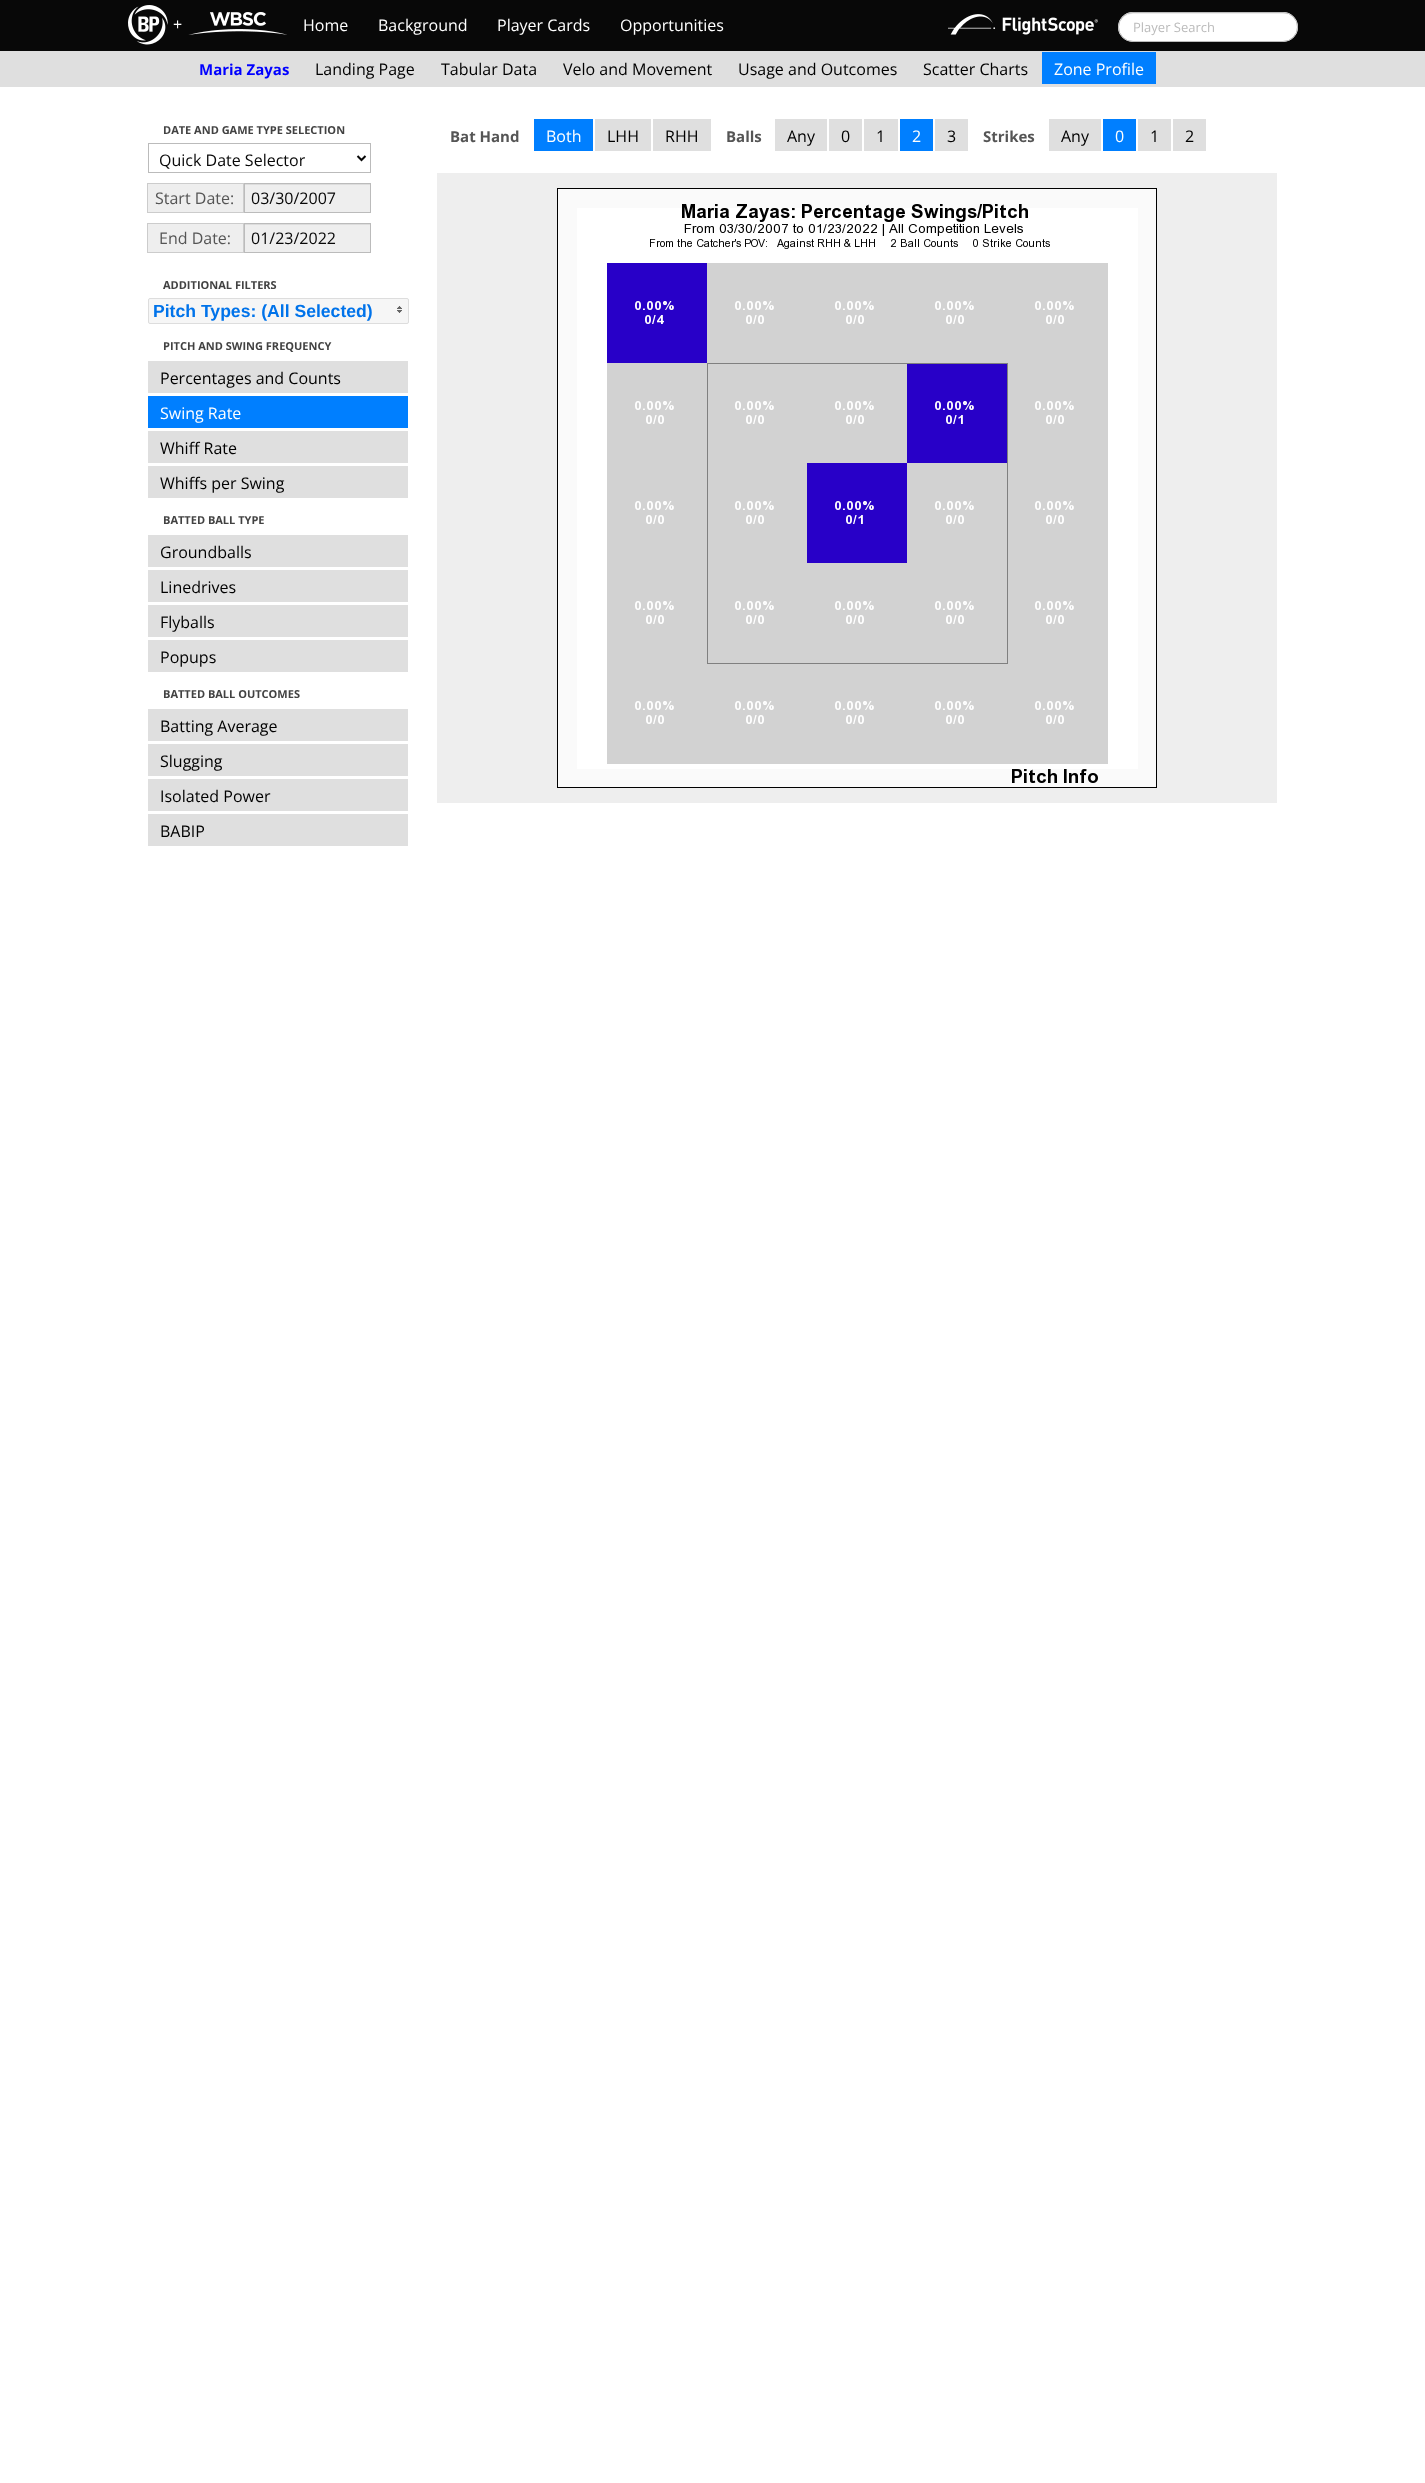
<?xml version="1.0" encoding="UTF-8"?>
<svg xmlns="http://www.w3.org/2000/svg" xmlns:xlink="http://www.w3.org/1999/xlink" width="1425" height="2483">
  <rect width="100%" height="100%" fill="#ffffff" />
  <rect width="1425" height="51" fill="#080808" />
  <image x="128" y="5" width="40" height="40" xlink:href="image1.png" />
  <image x="188" y="12" width="99" height="23" xlink:href="image2.png" />
  <image x="948" y="14" width="150" height="21" xlink:href="image3.png" />
  <rect x="1118" y="12" width="180" height="30" rx="15" fill="#ffffff" />
  <path d="M 1133 14 h 153 c 8 2 12 9 11 16 c 0 -3 0 -6 -1 -8 c -6 -14 -29 -9 -38 -9 h -100 c -10 0 -41 -6 -39 15 c 0 -7 5 -14 14 -14 z" fill="#ececec" />
  <rect x="1118.5" y="12.5" width="179" height="29" rx="14.5" fill="none" stroke="#bbbbbb" />
  <rect y="51" width="1425" height="36" fill="#dfdfdf" />
  <rect x="1042" y="52" width="114" height="32" fill="#007fff" />
  <rect x="148.5" y="143.5" width="222" height="29" fill="none" stroke="#bbbbbb" />
  <path d="M 357.5 156 l 4 4 l 4 -4" fill="none" stroke="#080808" stroke-width="2" />
  <rect x="147.5" y="183.5" width="96" height="29" fill="#eeeeee" stroke="#cccccc" />
  <rect x="245" y="185" width="125" height="27" fill="#eeeeee" />
  <rect x="245" y="184" width="125" height="1" fill="#dcdcdc" />
  <rect x="244.5" y="183.5" width="126" height="29" fill="none" stroke="#bbbbbb" />
  <rect x="147.5" y="223.5" width="96" height="29" fill="#eeeeee" stroke="#cccccc" />
  <rect x="245" y="225" width="125" height="27" fill="#eeeeee" />
  <rect x="245" y="224" width="125" height="1" fill="#dcdcdc" />
  <rect x="244.5" y="223.5" width="126" height="29" fill="none" stroke="#bbbbbb" />
  <rect x="148.5" y="298.5" width="260" height="25" rx="1.5" fill="#f6f6f6" stroke="#dddddd" />
  <image x="397" y="306" width="5" height="7" xlink:href="image4.png" />
  <rect x="148" y="361" width="260" height="32" fill="#dfdfdf" />
  <rect x="148" y="396" width="260" height="32" fill="#007fff" />
  <rect x="148" y="431" width="260" height="32" fill="#dfdfdf" />
  <rect x="148" y="466" width="260" height="32" fill="#dfdfdf" />
  <rect x="148" y="535" width="260" height="32" fill="#dfdfdf" />
  <rect x="148" y="570" width="260" height="32" fill="#dfdfdf" />
  <rect x="148" y="605" width="260" height="32" fill="#dfdfdf" />
  <rect x="148" y="640" width="260" height="32" fill="#dfdfdf" />
  <rect x="148" y="709" width="260" height="32" fill="#dfdfdf" />
  <rect x="148" y="744" width="260" height="32" fill="#dfdfdf" />
  <rect x="148" y="779" width="260" height="32" fill="#dfdfdf" />
  <rect x="148" y="814" width="260" height="32" fill="#dfdfdf" />
  <rect x="534" y="119" width="59" height="32" fill="#007fff" />
  <rect x="595" y="119" width="56" height="32" fill="#dfdfdf" />
  <rect x="653" y="119" width="58" height="32" fill="#dfdfdf" />
  <rect x="775" y="119" width="52" height="32" fill="#dfdfdf" />
  <rect x="829" y="119" width="33" height="32" fill="#dfdfdf" />
  <rect x="864" y="119" width="34" height="32" fill="#dfdfdf" />
  <rect x="900" y="119" width="33" height="32" fill="#007fff" />
  <rect x="935" y="119" width="33" height="32" fill="#dfdfdf" />
  <rect x="1049" y="119" width="52" height="32" fill="#dfdfdf" />
  <rect x="1103" y="119" width="33" height="32" fill="#007fff" />
  <rect x="1138" y="119" width="33" height="32" fill="#dfdfdf" />
  <rect x="1173" y="119" width="33" height="32" fill="#dfdfdf" />
  <rect x="437" y="173" width="840" height="630" fill="#eeeeee" />
  <image x="557" y="188" width="600" height="600" xlink:href="image5.png" />
  <text x="173" y="30" style="font-family: Open Sans; font-size: 16px; fill: #ffffff">+</text>
  <text x="303" y="31" style="font-family: Open Sans; font-size: 16px; fill: #ffffff">Home</text>
  <text x="378" y="31" style="font-family: Open Sans; font-size: 16px; fill: #ffffff">Background</text>
  <text x="497" y="31" style="font-family: Open Sans; font-size: 16px; fill: #ffffff">Player Cards</text>
  <text x="620" y="31" style="font-family: Open Sans; font-size: 16px; fill: #ffffff">Opportunities</text>
  <text x="1133" y="32" style="font-family: Open Sans; font-size: 13px; fill: #bbbbbb">Player Search</text>
  <text x="199" y="75" style="font-family: Open Sans; font-size: 15px; font-weight: bold; fill: #0000ff">Maria Zayas</text>
  <text x="315" y="75" style="font-family: Open Sans; font-size: 16px; fill: #000000">Landing Page</text>
  <text x="441" y="75" style="font-family: Open Sans; font-size: 16px; fill: #000000">Tabular Data</text>
  <text x="563" y="75" style="font-family: Open Sans; font-size: 16px; fill: #000000">Velo and Movement</text>
  <text x="738" y="75" style="font-family: Open Sans; font-size: 16px; fill: #000000">Usage and Outcomes</text>
  <text x="923" y="75" style="font-family: Open Sans; font-size: 16px; fill: #000000">Scatter Charts</text>
  <text x="1054" y="75" style="font-family: Open Sans; font-size: 16px; fill: #ffffff">Zone Profile</text>
  <text x="163" y="134" style="font-family: Open Sans; font-size: 11px; font-weight: bold; fill: #424242">DATE AND GAME TYPE SELECTION</text>
  <text x="159" y="166" style="font-family: Open Sans; font-size: 16px; fill: #080808">Quick Date Selector</text>
  <text x="155" y="204" style="font-family: Open Sans; font-size: 16px; fill: #555555">Start Date:</text>
  <text x="251" y="204" style="font-family: Open Sans; font-size: 16px; fill: #080808">03/30/2007</text>
  <text x="159" y="244" style="font-family: Open Sans; font-size: 16px; fill: #555555">End Date:</text>
  <text x="251" y="244" style="font-family: Open Sans; font-size: 16px; fill: #080808">01/23/2022</text>
  <text x="163" y="289" style="font-family: Open Sans; font-size: 11px; font-weight: bold; fill: #424242">ADDITIONAL FILTERS</text>
  <text x="153" y="317" style="font-family: Liberation Sans; font-size: 17.6px; font-weight: bold; fill: #0073ea">Pitch Types: (All Selected)</text>
  <text x="163" y="350" style="font-family: Open Sans; font-size: 11px; font-weight: bold; fill: #424242">PITCH AND SWING FREQUENCY</text>
  <text x="160" y="384" style="font-family: Open Sans; font-size: 16px; fill: #000000">Percentages and Counts</text>
  <text x="160" y="419" style="font-family: Open Sans; font-size: 16px; fill: #ffffff">Swing Rate</text>
  <text x="160" y="454" style="font-family: Open Sans; font-size: 16px; fill: #000000">Whiff Rate</text>
  <text x="160" y="489" style="font-family: Open Sans; font-size: 16px; fill: #000000">Whiffs per Swing</text>
  <text x="163" y="524" style="font-family: Open Sans; font-size: 11px; font-weight: bold; fill: #424242">BATTED BALL TYPE</text>
  <text x="160" y="558" style="font-family: Open Sans; font-size: 16px; fill: #000000">Groundballs</text>
  <text x="160" y="593" style="font-family: Open Sans; font-size: 16px; fill: #000000">Linedrives</text>
  <text x="160" y="628" style="font-family: Open Sans; font-size: 16px; fill: #000000">Flyballs</text>
  <text x="160" y="663" style="font-family: Open Sans; font-size: 16px; fill: #000000">Popups</text>
  <text x="163" y="698" style="font-family: Open Sans; font-size: 11px; font-weight: bold; fill: #424242">BATTED BALL OUTCOMES</text>
  <text x="160" y="732" style="font-family: Open Sans; font-size: 16px; fill: #000000">Batting Average</text>
  <text x="160" y="767" style="font-family: Open Sans; font-size: 16px; fill: #000000">Slugging</text>
  <text x="160" y="802" style="font-family: Open Sans; font-size: 16px; fill: #000000">Isolated Power</text>
  <text x="160" y="837" style="font-family: Open Sans; font-size: 16px; fill: #000000">BABIP</text>
  <text x="450" y="142" style="font-family: Open Sans; font-size: 15px; font-weight: bold; fill: #555555">Bat Hand</text>
  <text x="546" y="142" style="font-family: Open Sans; font-size: 16px; fill: #ffffff">Both</text>
  <text x="607" y="142" style="font-family: Open Sans; font-size: 16px; fill: #000000">LHH</text>
  <text x="665" y="142" style="font-family: Open Sans; font-size: 16px; fill: #000000">RHH</text>
  <text x="726" y="142" style="font-family: Open Sans; font-size: 15px; font-weight: bold; fill: #555555">Balls</text>
  <text x="787" y="142" style="font-family: Open Sans; font-size: 16px; fill: #000000">Any</text>
  <text x="841" y="142" style="font-family: Open Sans; font-size: 16px; fill: #000000">0</text>
  <text x="876" y="142" style="font-family: Open Sans; font-size: 16px; fill: #000000">1</text>
  <text x="912" y="142" style="font-family: Open Sans; font-size: 16px; fill: #ffffff">2</text>
  <text x="947" y="142" style="font-family: Open Sans; font-size: 16px; fill: #000000">3</text>
  <text x="983" y="142" style="font-family: Open Sans; font-size: 15px; font-weight: bold; fill: #555555">Strikes</text>
  <text x="1061" y="142" style="font-family: Open Sans; font-size: 16px; fill: #000000">Any</text>
  <text x="1115" y="142" style="font-family: Open Sans; font-size: 16px; fill: #ffffff">0</text>
  <text x="1150" y="142" style="font-family: Open Sans; font-size: 16px; fill: #000000">1</text>
  <text x="1185" y="142" style="font-family: Open Sans; font-size: 16px; fill: #000000">2</text>
</svg>
